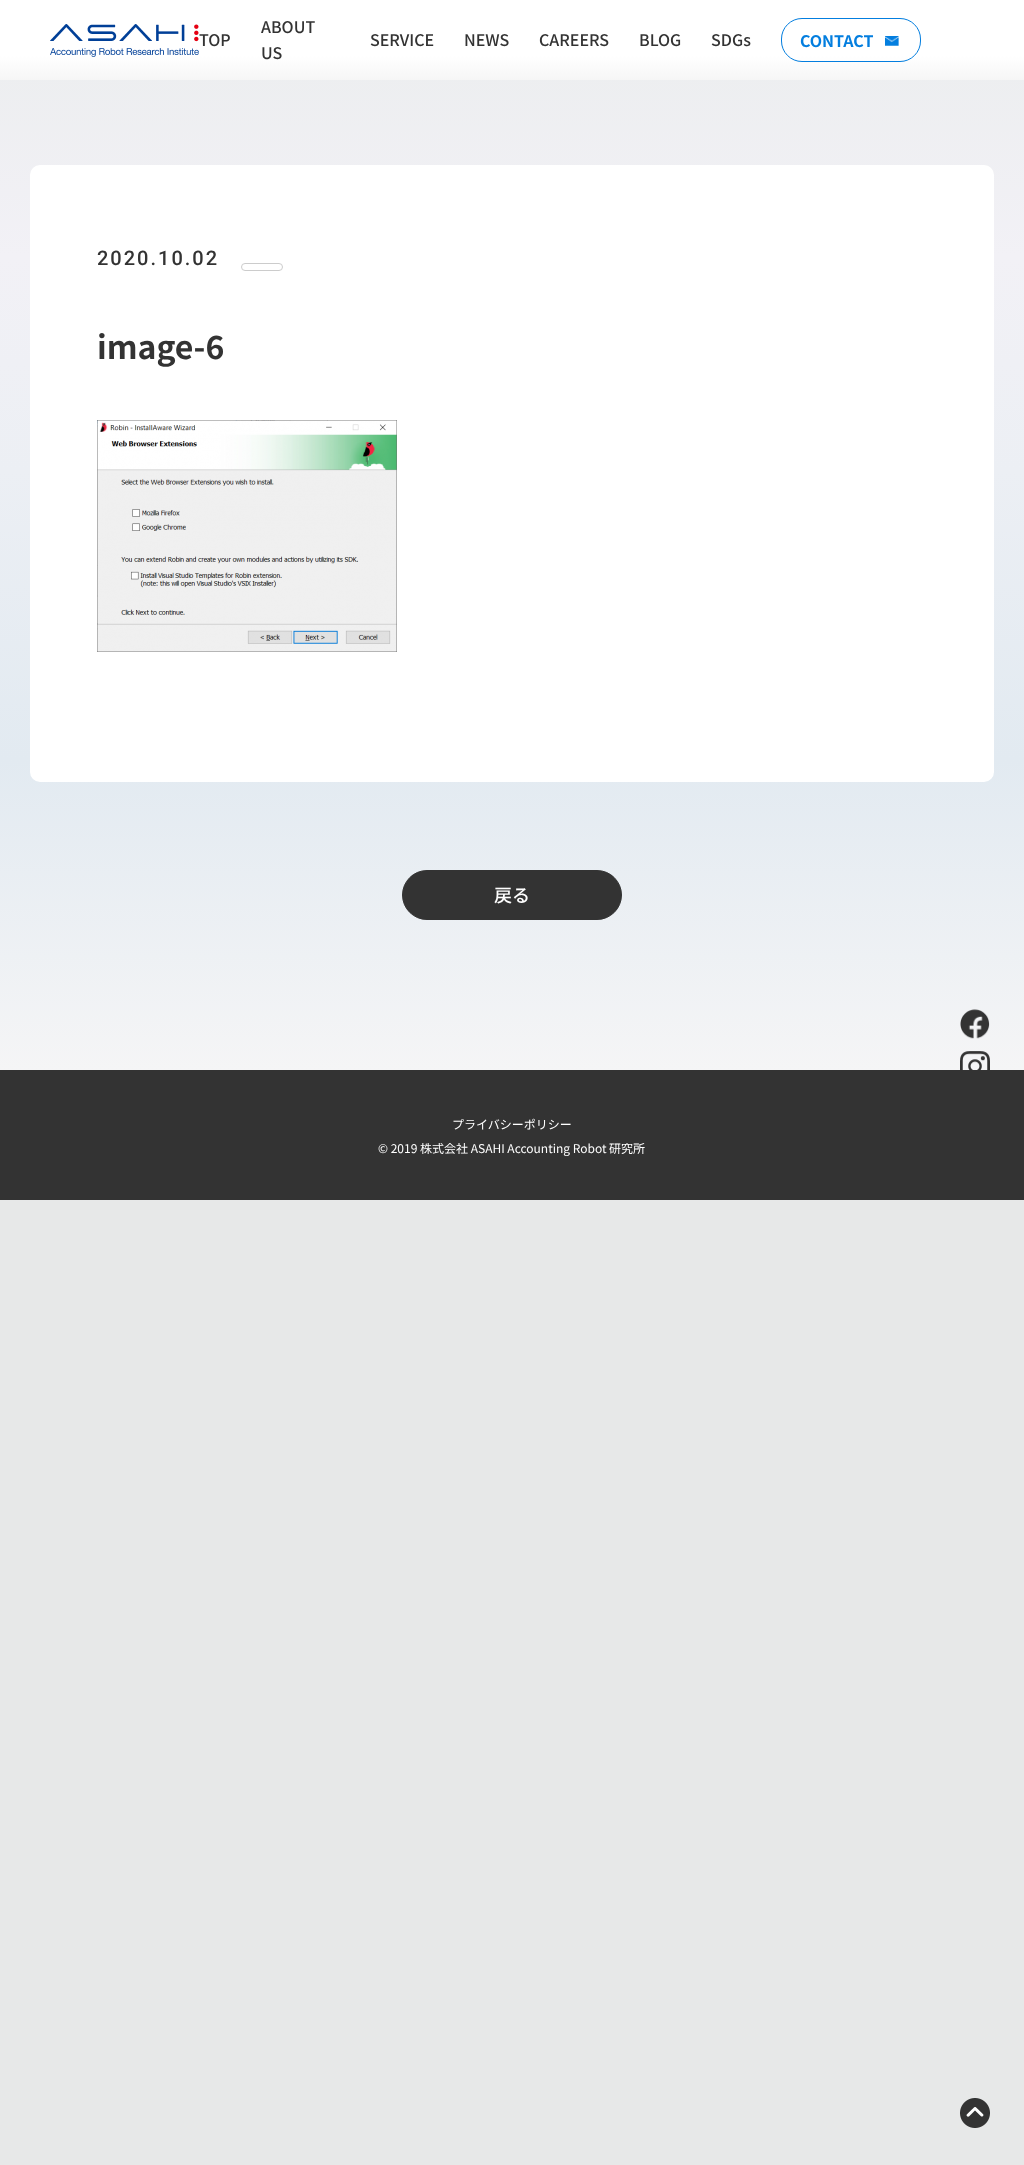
<?xml version="1.0" encoding="UTF-8"?>
<svg xmlns="http://www.w3.org/2000/svg" xmlns:xlink="http://www.w3.org/1999/xlink" width="1024" height="2165">
  <defs>
    <linearGradient id="g1" gradientUnits="userSpaceOnUse" x1="512" y1="0" x2="512" y2="80"><stop offset="0" stop-color="#ffffff" /><stop offset="0.7" stop-color="#ffffff" /><stop offset="1" stop-color="#f6f6f6" /></linearGradient>
    <linearGradient id="g2" gradientUnits="userSpaceOnUse" x1="512" y1="0" x2="512" y2="1070"><stop offset="0" stop-color="#ebedee" /><stop offset="0.24" stop-color="#f2f1f6" /><stop offset="0.44" stop-color="#eceff4" /><stop offset="0.71" stop-color="#e2eaf1" /><stop offset="1" stop-color="#f5f5f6" /></linearGradient>
  </defs>
  <rect width="100%" height="100%" fill="#e7e8e8" />
  <rect width="1024" height="80" fill="url(#g1)" />
  <image x="50" y="24" width="149" height="33" xlink:href="image1.png" />
  <rect x="781.5" y="18.5" width="139" height="43" rx="20.5" fill="none" stroke="#037edf" />
  <image x="885" y="36" width="14" height="10" xlink:href="image2.png" />
  <rect y="80" width="1024" height="990" fill="url(#g2)" />
  <rect x="30" y="165" width="964" height="617" rx="10" fill="#ffffff" />
  <rect x="241.5" y="263.5" width="41" height="7" rx="3.5" fill="none" stroke="#cccccc" />
  <image x="97" y="420" width="300" height="232" xlink:href="image3.png" />
  <rect x="402.5" y="870.5" width="219" height="49" rx="24.5" fill="#333333" stroke="#333333" />
  <image x="960" y="1009" width="30" height="30" xlink:href="image4.png" />
  <image x="960" y="1051" width="30" height="19" xlink:href="image5.png" />
  <rect y="1070" width="1024" height="130" fill="#333333" />
  <image x="960" y="2098" width="30" height="30" xlink:href="image6.png" />
  <text x="199" y="46" style="font-family: Noto Sans JP; font-size: 16px; font-weight: 500; fill: #333333">TOP</text>
  <text x="261" y="33" style="font-family: Noto Sans JP; font-size: 16px; font-weight: 500; fill: #333333">ABOUT</text>
  <text x="261" y="59" style="font-family: Noto Sans JP; font-size: 16px; font-weight: 500; fill: #333333">US</text>
  <text x="370" y="46" style="font-family: Noto Sans JP; font-size: 16px; font-weight: 500; fill: #333333">SERVICE</text>
  <text x="464" y="46" style="font-family: Noto Sans JP; font-size: 16px; font-weight: 500; fill: #333333">NEWS</text>
  <text x="539" y="46" style="font-family: Noto Sans JP; font-size: 16px; font-weight: 500; fill: #333333">CAREERS</text>
  <text x="639" y="46" style="font-family: Noto Sans JP; font-size: 16px; font-weight: 500; fill: #333333">BLOG</text>
  <text x="711" y="46" style="font-family: Noto Sans JP; font-size: 16px; font-weight: 500; fill: #333333">SDGs</text>
  <text x="800" y="47" style="font-family: Noto Sans JP; font-size: 16px; font-weight: bold; fill: #037edf">CONTACT</text>
  <text x="97" y="265" style="font-family: Roboto; font-size: 20px; font-weight: 500; letter-spacing: 2px; fill: #333333">2020.10.02</text>
  <text x="97" y="359" style="font-family: Noto Sans JP; font-size: 32px; font-weight: bold; fill: #333333">image-6</text>
  <text x="494" y="902" style="font-family: Noto Sans JP; font-size: 18px; font-weight: 500; fill: #ffffff">戻る</text>
  <text x="452" y="1129" style="font-family: Noto Sans JP; font-size: 12px; fill: #ffffff">プライバシーポリシー</text>
  <text x="378" y="1153" style="font-family: Noto Sans JP; font-size: 12px; fill: #ffffff">© 2019 株式会社 ASAHI Accounting Robot 研究所</text>
</svg>
